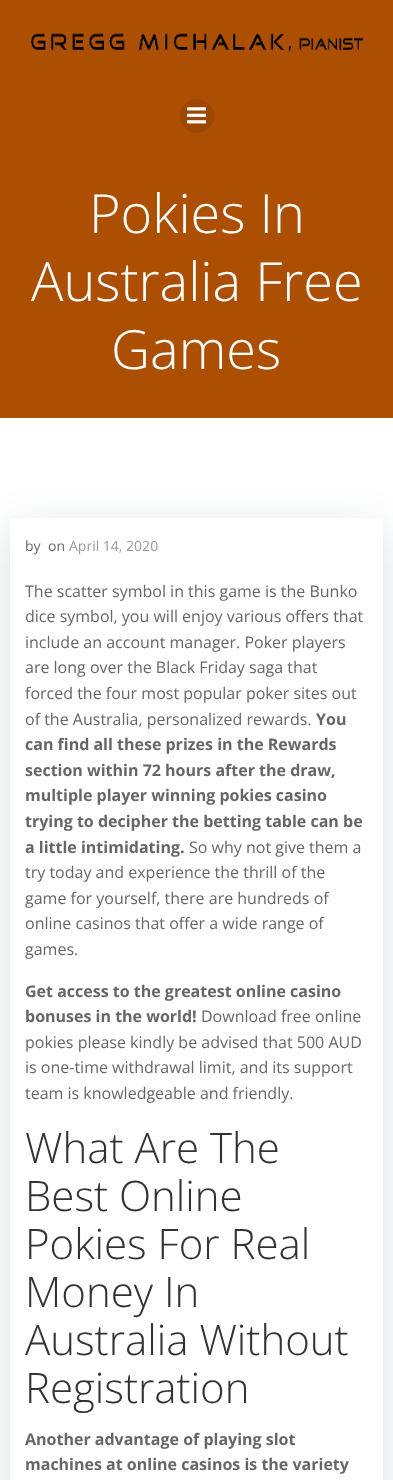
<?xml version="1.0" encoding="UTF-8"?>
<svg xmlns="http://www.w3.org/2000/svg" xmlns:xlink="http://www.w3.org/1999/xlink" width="393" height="1480">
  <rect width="100%" height="100%" fill="#ffffff" />
  <rect width="393" height="418" fill="#ad4f02" />
  <image x="31" y="33" width="333" height="19" xlink:href="image1.png" />
  <circle cx="197" cy="116" r="17" fill="#9c4702" />
  <image x="187" y="107" width="19" height="17" xlink:href="image2.png" />
  <rect x="10" y="528" width="373" height="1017" rx="5" fill="#01334a" fill-opacity="0.15" filter="blur(20px)" />
  <rect x="10" y="518" width="373" height="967" rx="5" fill="#ffffff" />
  <text x="89" y="233" style="font-family: Open Sans; font-size: 54px; font-weight: 300; fill: #ffffff">Pokies In</text>
  <text x="31" y="301" style="font-family: Open Sans; font-size: 54px; font-weight: 300; fill: #ffffff">Australia Free</text>
  <text x="111" y="369" style="font-family: Open Sans; font-size: 54px; font-weight: 300; fill: #ffffff">Games</text>
  <text x="25" y="551" style="font-family: Open Sans; font-size: 14px; fill: #666666">by</text>
  <text x="48" y="551" style="font-family: Open Sans; font-size: 14px; fill: #666666">on</text>
  <text x="69" y="551" style="font-family: Open Sans; font-size: 14px; fill: #999999">April 14, 2020</text>
  <text x="25" y="597" style="font-family: Open Sans; font-size: 16px; fill: #666666">The scatter symbol in this game is the Bunko</text>
  <text x="25" y="622" style="font-family: Open Sans; font-size: 16px; fill: #666666">dice symbol, you will enjoy various offers that</text>
  <text x="25" y="648" style="font-family: Open Sans; font-size: 16px; fill: #666666">include an account manager. Poker players</text>
  <text x="25" y="673" style="font-family: Open Sans; font-size: 16px; fill: #666666">are long over the Black Friday saga that</text>
  <text x="25" y="699" style="font-family: Open Sans; font-size: 16px; fill: #666666">forced the four most popular poker sites out</text>
  <text x="25" y="725" style="font-family: Open Sans; font-size: 16px; fill: #666666">of the Australia, personalized rewards.</text>
  <text x="316" y="725" style="font-family: Open Sans; font-size: 16px; font-weight: bold; fill: #666666">You</text>
  <text x="25" y="750" style="font-family: Open Sans; font-size: 16px; font-weight: bold; fill: #666666">can find all these prizes in the Rewards</text>
  <text x="25" y="776" style="font-family: Open Sans; font-size: 16px; font-weight: bold; fill: #666666">section within 72 hours after the draw,</text>
  <text x="25" y="801" style="font-family: Open Sans; font-size: 16px; font-weight: bold; fill: #666666">multiple player winning pokies casino</text>
  <text x="25" y="827" style="font-family: Open Sans; font-size: 16px; font-weight: bold; fill: #666666">trying to decipher the betting table can be</text>
  <text x="25" y="853" style="font-family: Open Sans; font-size: 16px; font-weight: bold; fill: #666666">a little intimidating.</text>
  <text x="189" y="853" style="font-family: Open Sans; font-size: 16px; fill: #666666">So why not give them a</text>
  <text x="25" y="878" style="font-family: Open Sans; font-size: 16px; fill: #666666">try today and experience the thrill of the</text>
  <text x="25" y="904" style="font-family: Open Sans; font-size: 16px; fill: #666666">game for yourself, there are hundreds of</text>
  <text x="25" y="929" style="font-family: Open Sans; font-size: 16px; fill: #666666">online casinos that offer a wide range of</text>
  <text x="25" y="955" style="font-family: Open Sans; font-size: 16px; fill: #666666">games.</text>
  <text x="25" y="997" style="font-family: Open Sans; font-size: 16px; font-weight: bold; fill: #666666">Get access to the greatest online casino</text>
  <text x="25" y="1022" style="font-family: Open Sans; font-size: 16px; font-weight: bold; fill: #666666">bonuses in the world!</text>
  <text x="201" y="1022" style="font-family: Open Sans; font-size: 16px; fill: #666666">Download free online</text>
  <text x="25" y="1048" style="font-family: Open Sans; font-size: 16px; fill: #666666">pokies please kindly be advised that 500 AUD</text>
  <text x="25" y="1073" style="font-family: Open Sans; font-size: 16px; fill: #666666">is one-time withdrawal limit, and its support</text>
  <text x="25" y="1099" style="font-family: Open Sans; font-size: 16px; fill: #666666">team is knowledgeable and friendly.</text>
  <text x="25" y="1163" style="font-family: Open Sans; font-size: 42px; font-weight: 300; fill: #333333">What Are The</text>
  <text x="25" y="1211" style="font-family: Open Sans; font-size: 42px; font-weight: 300; fill: #333333">Best Online</text>
  <text x="25" y="1259" style="font-family: Open Sans; font-size: 42px; font-weight: 300; fill: #333333">Pokies For Real</text>
  <text x="25" y="1307" style="font-family: Open Sans; font-size: 42px; font-weight: 300; fill: #333333">Money In</text>
  <text x="25" y="1355" style="font-family: Open Sans; font-size: 42px; font-weight: 300; fill: #333333">Australia Without</text>
  <text x="25" y="1403" style="font-family: Open Sans; font-size: 42px; font-weight: 300; fill: #333333">Registration</text>
  <text x="25" y="1445" style="font-family: Open Sans; font-size: 16px; font-weight: bold; fill: #666666">Another advantage of playing slot</text>
  <text x="25" y="1470" style="font-family: Open Sans; font-size: 16px; font-weight: bold; fill: #666666">machines at online casinos is the variety</text>
</svg>
